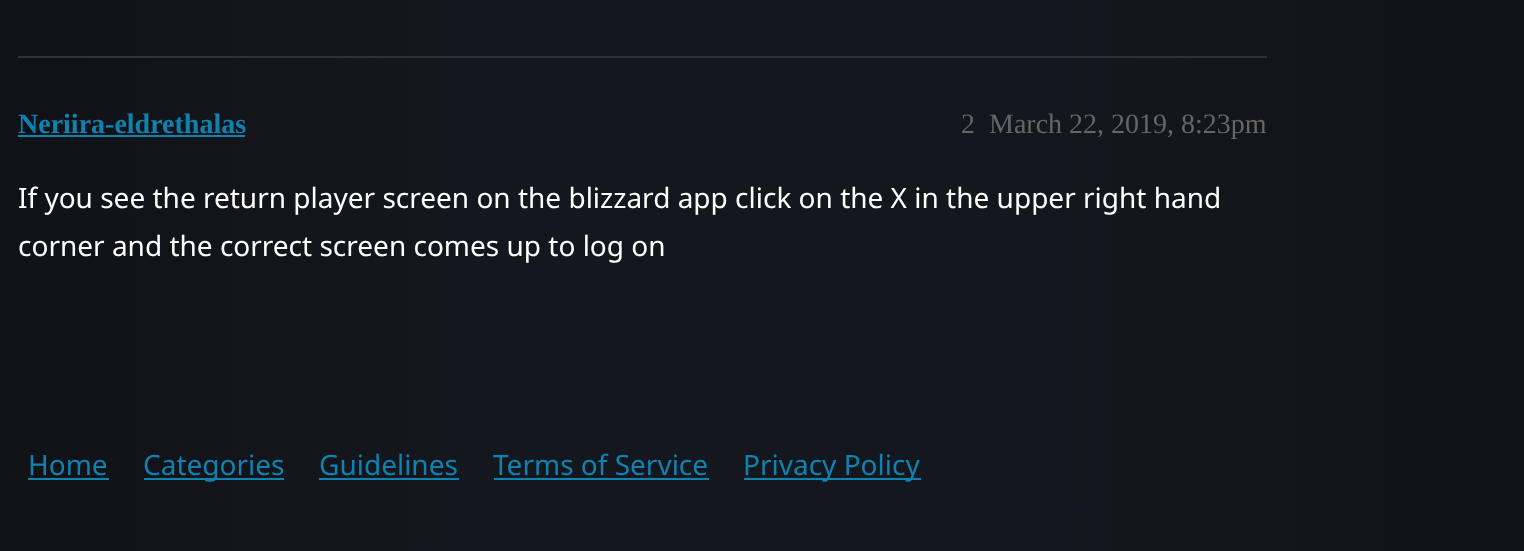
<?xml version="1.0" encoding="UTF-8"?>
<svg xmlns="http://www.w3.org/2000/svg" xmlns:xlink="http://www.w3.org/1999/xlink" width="1524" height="551">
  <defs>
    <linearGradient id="g1" gradientUnits="userSpaceOnUse" x1="0" y1="-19" x2="1524" y2="-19"><stop offset="0" stop-color="#111217" /><stop offset="0.3" stop-color="#15171e" /><stop offset="0.7" stop-color="#15171e" /><stop offset="1" stop-color="#111217" /></linearGradient>
  </defs>
  <rect width="100%" height="100%" fill="#ffffff" />
  <rect width="1524" height="551" fill="url(#g1)" />
  <rect x="18" y="56" width="1249" height="2" fill="#313131" />
  <rect x="18" y="135" width="227" height="2" fill="#0f82af" />
  <rect x="28" y="478" width="81" height="2" fill="#0f82af" />
  <rect x="144" y="478" width="140" height="2" fill="#0f82af" />
  <rect x="319" y="478" width="140" height="2" fill="#0f82af" />
  <rect x="494" y="478" width="215" height="2" fill="#0f82af" />
  <rect x="744" y="478" width="177" height="2" fill="#0f82af" />
  <text x="18" y="133" style="font-family: Liberation Serif; font-size: 28px; font-weight: bold; fill: #0f82af">Neriira-eldrethalas</text>
  <text x="961" y="133" style="font-family: Liberation Serif; font-size: 28px; fill: #666666">2</text>
  <text x="989" y="133" style="font-family: Liberation Serif; font-size: 28px; fill: #666666">March 22, 2019, 8:23pm</text>
  <text x="18" y="208" style="font-family: Noto Sans; font-size: 28px; fill: #ffffff">If you see the return player screen on the blizzard app click on the X in the upper right hand</text>
  <text x="18" y="256" style="font-family: Noto Sans; font-size: 28px; fill: #ffffff">corner and the correct screen comes up to log on</text>
  <text x="28" y="475" style="font-family: Noto Sans; font-size: 28px; fill: #0f82af">Home</text>
  <text x="143" y="475" style="font-family: Noto Sans; font-size: 28px; fill: #0f82af">Categories</text>
  <text x="319" y="475" style="font-family: Noto Sans; font-size: 28px; fill: #0f82af">Guidelines</text>
  <text x="493" y="475" style="font-family: Noto Sans; font-size: 28px; fill: #0f82af">Terms of Service</text>
  <text x="743" y="475" style="font-family: Noto Sans; font-size: 28px; fill: #0f82af">Privacy Policy</text>
</svg>
